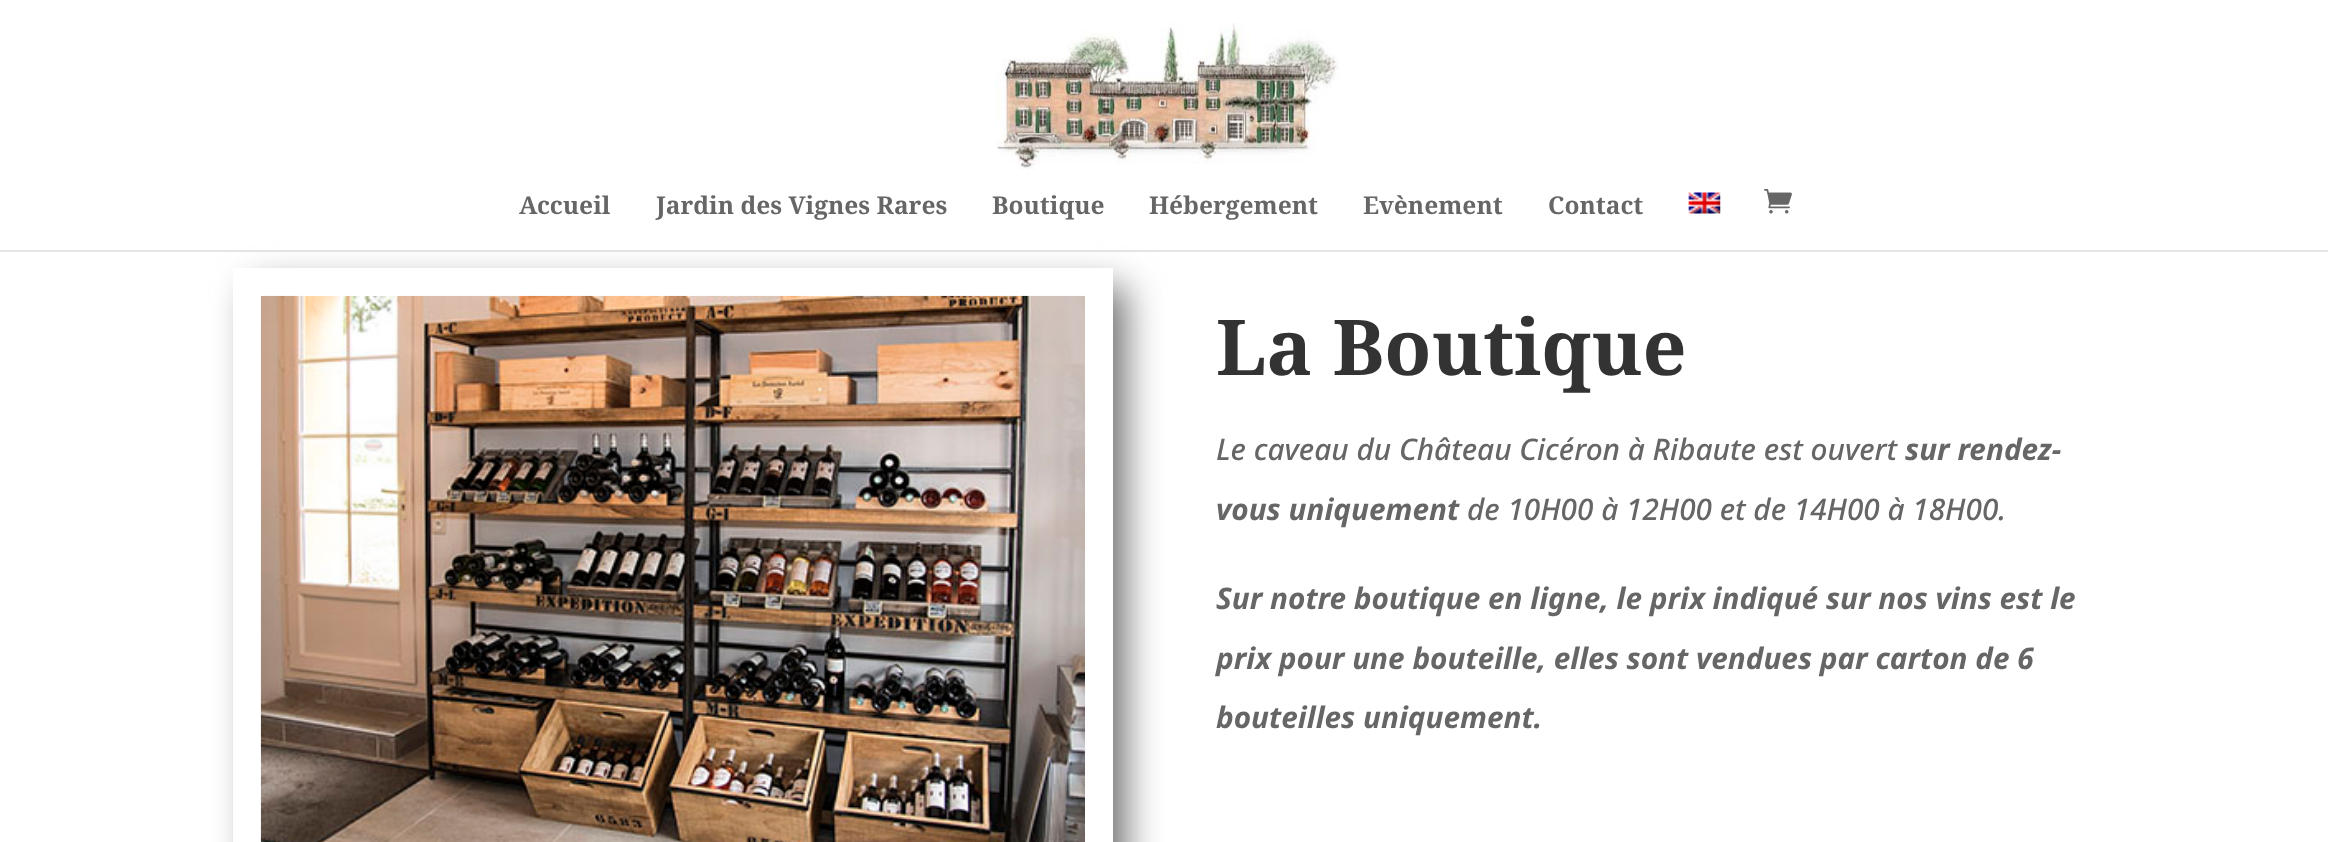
<?xml version="1.0" encoding="UTF-8"?>
<svg xmlns="http://www.w3.org/2000/svg" xmlns:xlink="http://www.w3.org/1999/xlink" width="2328" height="842">
  <rect width="100%" height="100%" fill="#ffffff" />
  <rect x="252" y="287" width="873" height="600" rx="2" fill="#6b6b6b" filter="blur(18.5px)" />
  <rect y="250" width="2328" height="2" fill="#000000" fill-opacity="0.1" />
  <rect x="270" y="248" width="837" height="2" fill="#ffffff" />
  <image x="995" y="23" width="345" height="147" xlink:href="image1.png" />
  <image x="1688" y="192" width="33" height="22" xlink:href="image2.png" />
  <image x="1764" y="189" width="28" height="25" xlink:href="image3.png" />
  <path d="M 247 282 h 852 v 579 h -852 z" fill="none" stroke="#ffffff" stroke-width="28" />
  <image x="260" y="295" width="825" height="547" xlink:href="image4.png" />
  <text x="519" y="214" style="font-family: Noto Serif; font-size: 24.5px; font-weight: bold; fill: #666666">Accueil</text>
  <text x="656" y="214" style="font-family: Noto Serif; font-size: 24.5px; font-weight: bold; fill: #666666">Jardin des Vignes Rares</text>
  <text x="992" y="214" style="font-family: Noto Serif; font-size: 24.5px; font-weight: bold; fill: #666666">Boutique</text>
  <text x="1149" y="214" style="font-family: Noto Serif; font-size: 24.5px; font-weight: bold; fill: #666666">Hébergement</text>
  <text x="1363" y="214" style="font-family: Noto Serif; font-size: 24.5px; font-weight: bold; fill: #666666">Evènement</text>
  <text x="1548" y="214" style="font-family: Noto Serif; font-size: 24.5px; font-weight: bold; fill: #666666">Contact</text>
  <text x="1216" y="375" style="font-family: Noto Serif; font-size: 77px; font-weight: bold; fill: #333333">La Boutique</text>
  <text x="1216" y="460" style="font-family: Noto Sans; font-size: 29.75px; font-weight: 500; font-style: italic; fill: #666666">Le caveau du Château Cicéron à Ribaute est ouvert</text>
  <text x="1905" y="460" style="font-family: Noto Sans; font-size: 29.75px; font-weight: bold; font-style: italic; fill: #666666">sur rendez-</text>
  <text x="1216" y="520" style="font-family: Noto Sans; font-size: 29.75px; font-weight: bold; font-style: italic; fill: #666666">vous uniquement</text>
  <text x="1467" y="520" style="font-family: Noto Sans; font-size: 29.75px; font-weight: 500; font-style: italic; fill: #666666">de 10H00 à 12H00 et de 14H00 à 18H00.</text>
  <text x="1216" y="609" style="font-family: Noto Sans; font-size: 29.75px; font-weight: bold; font-style: italic; fill: #666666">Sur notre boutique en ligne, le prix indiqué sur nos vins est le</text>
  <text x="1216" y="669" style="font-family: Noto Sans; font-size: 29.75px; font-weight: bold; font-style: italic; fill: #666666">prix pour une bouteille, elles sont vendues par carton de 6</text>
  <text x="1216" y="728" style="font-family: Noto Sans; font-size: 29.75px; font-weight: bold; font-style: italic; fill: #666666">bouteilles uniquement.</text>
</svg>
